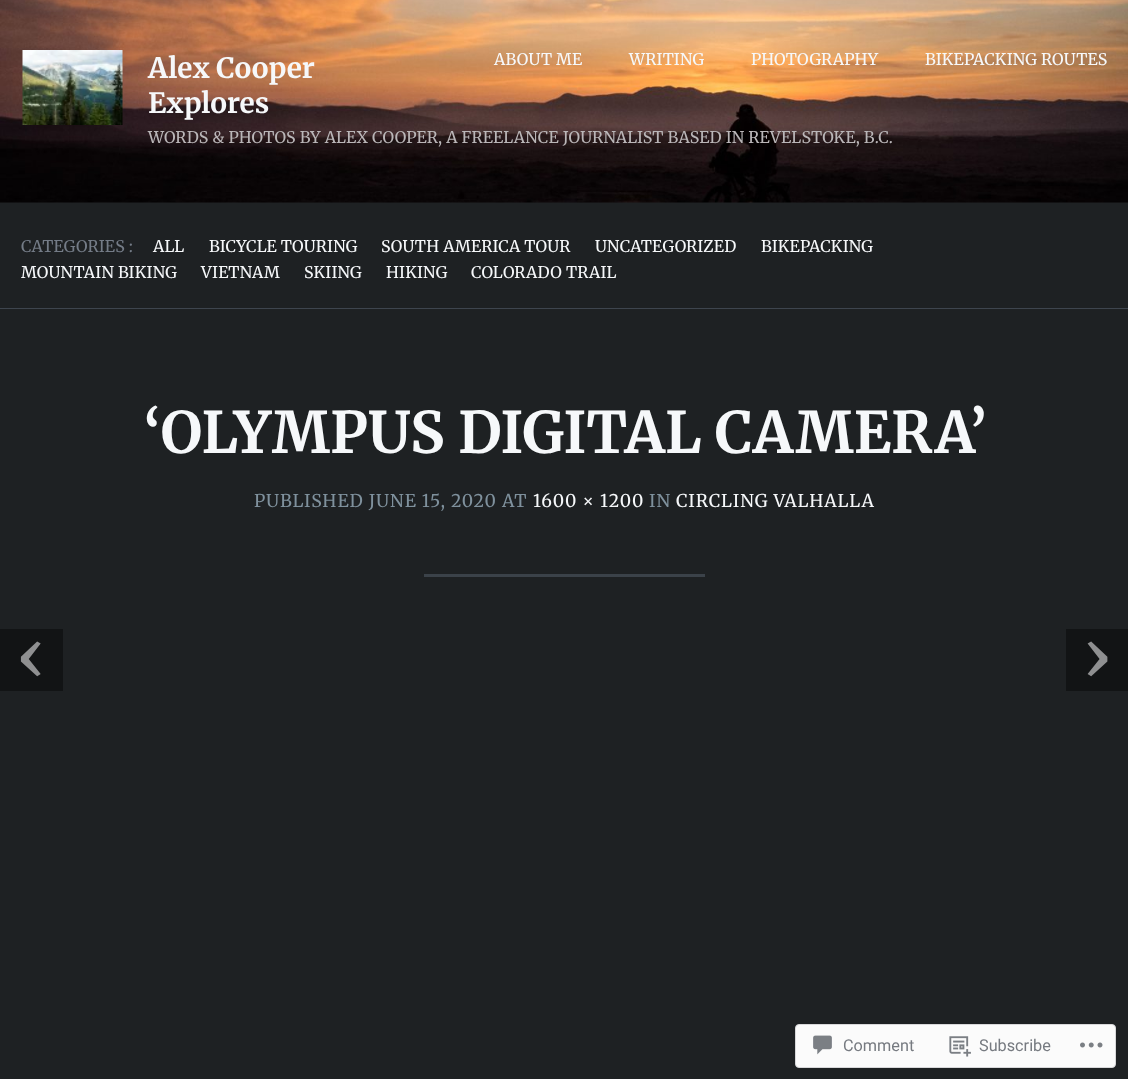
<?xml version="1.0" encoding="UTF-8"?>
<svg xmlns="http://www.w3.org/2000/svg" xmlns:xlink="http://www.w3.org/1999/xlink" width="1128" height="1079">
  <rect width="100%" height="100%" fill="#1e2123" />
  <image x="0" y="0" width="1128" height="203" xlink:href="image1.png" />
  <image x="22" y="50" width="101" height="75" xlink:href="image2.png" />
  <rect y="308" width="1128" height="1" fill="#3e454e" />
  <rect x="424" y="574" width="281" height="3" fill="#3b4249" />
  <rect y="629" width="63" height="62" fill="#121415" />
  <rect x="1066" y="629" width="62" height="62" fill="#121415" />
  <rect x="795.5" y="1024.5" width="320" height="43" rx="3.5" fill="#fbfbfb" stroke="#d8d8da" />
  <image x="813" y="1035" width="19" height="20" xlink:href="image3.png" />
  <image x="949" y="1036" width="22" height="21" xlink:href="image4.png" />
  <image x="1080" y="1042" width="23" height="6" xlink:href="image5.png" />
  <text x="494" y="65" style="font-family: Merriweather; font-size: 16px; letter-spacing: 0.15px; fill: #f6f8fa">ABOUT ME</text>
  <text x="629" y="65" style="font-family: Merriweather; font-size: 16px; letter-spacing: 0.15px; fill: #f6f8fa">WRITING</text>
  <text x="751" y="65" style="font-family: Merriweather; font-size: 16px; letter-spacing: 0.15px; fill: #f6f8fa">PHOTOGRAPHY</text>
  <text x="925" y="65" style="font-family: Merriweather; font-size: 16px; letter-spacing: 0.15px; fill: #f6f8fa">BIKEPACKING ROUTES</text>
  <text x="148" y="78" style="font-family: Merriweather; font-size: 28px; font-weight: bold; fill: #f6f8fa">Alex Cooper</text>
  <text x="148" y="113" style="font-family: Merriweather; font-size: 28px; font-weight: bold; fill: #f6f8fa">Explores</text>
  <text x="148" y="143" style="font-family: Merriweather; font-size: 16px; letter-spacing: 0.15px; fill: #bab6b8">WORDS &amp; PHOTOS BY ALEX COOPER, A FREELANCE JOURNALIST BASED IN REVELSTOKE, B.C.</text>
  <text x="21" y="252" style="font-family: Merriweather; font-size: 16px; letter-spacing: 0.15px; fill: #747c87">CATEGORIES :</text>
  <text x="153" y="252" style="font-family: Merriweather; font-size: 16px; letter-spacing: 0.15px; fill: #f6f8fa">ALL</text>
  <text x="209" y="252" style="font-family: Merriweather; font-size: 16px; letter-spacing: 0.15px; fill: #f6f8fa">BICYCLE TOURING</text>
  <text x="381" y="252" style="font-family: Merriweather; font-size: 16px; letter-spacing: 0.15px; fill: #f6f8fa">SOUTH AMERICA TOUR</text>
  <text x="595" y="252" style="font-family: Merriweather; font-size: 16px; letter-spacing: 0.15px; fill: #f6f8fa">UNCATEGORIZED</text>
  <text x="761" y="252" style="font-family: Merriweather; font-size: 16px; letter-spacing: 0.15px; fill: #f6f8fa">BIKEPACKING</text>
  <text x="21" y="278" style="font-family: Merriweather; font-size: 16px; letter-spacing: 0.15px; fill: #f6f8fa">MOUNTAIN BIKING</text>
  <text x="201" y="278" style="font-family: Merriweather; font-size: 16px; letter-spacing: 0.15px; fill: #f6f8fa">VIETNAM</text>
  <text x="304" y="278" style="font-family: Merriweather; font-size: 16px; letter-spacing: 0.15px; fill: #f6f8fa">SKIING</text>
  <text x="386" y="278" style="font-family: Merriweather; font-size: 16px; letter-spacing: 0.15px; fill: #f6f8fa">HIKING</text>
  <text x="471" y="278" style="font-family: Merriweather; font-size: 16px; letter-spacing: 0.15px; fill: #f6f8fa">COLORADO TRAIL</text>
  <text x="144" y="453" style="font-family: Merriweather; font-size: 57.25px; font-weight: bold; fill: #f6f8fa">‘OLYMPUS DIGITAL CAMERA’</text>
  <text x="254" y="507" style="font-family: Merriweather; font-size: 17.6px; letter-spacing: 0.9px; fill: #7f919d">PUBLISHED JUNE 15, 2020 AT</text>
  <text x="533" y="507" style="font-family: Merriweather; font-size: 17.6px; letter-spacing: 0.9px; fill: #f6f8fa">1600 × 1200</text>
  <text x="649" y="507" style="font-family: Merriweather; font-size: 17.6px; letter-spacing: 0.9px; fill: #7f919d">IN</text>
  <text x="676" y="507" style="font-family: Merriweather; font-size: 17.6px; letter-spacing: 0.9px; fill: #f6f8fa">CIRCLING VALHALLA</text>
  <text x="17" y="680" style="font-family: Merriweather; font-size: 70px; fill: #8f9091">‹</text>
  <text x="1083" y="680" style="font-family: Merriweather; font-size: 70px; fill: #8f9091">›</text>
  <text x="843" y="1051" style="font-family: Roboto; font-size: 16.25px; fill: #767a80">Comment</text>
  <text x="979" y="1051" style="font-family: Roboto; font-size: 16.25px; fill: #767a80">Subscribe</text>
</svg>
